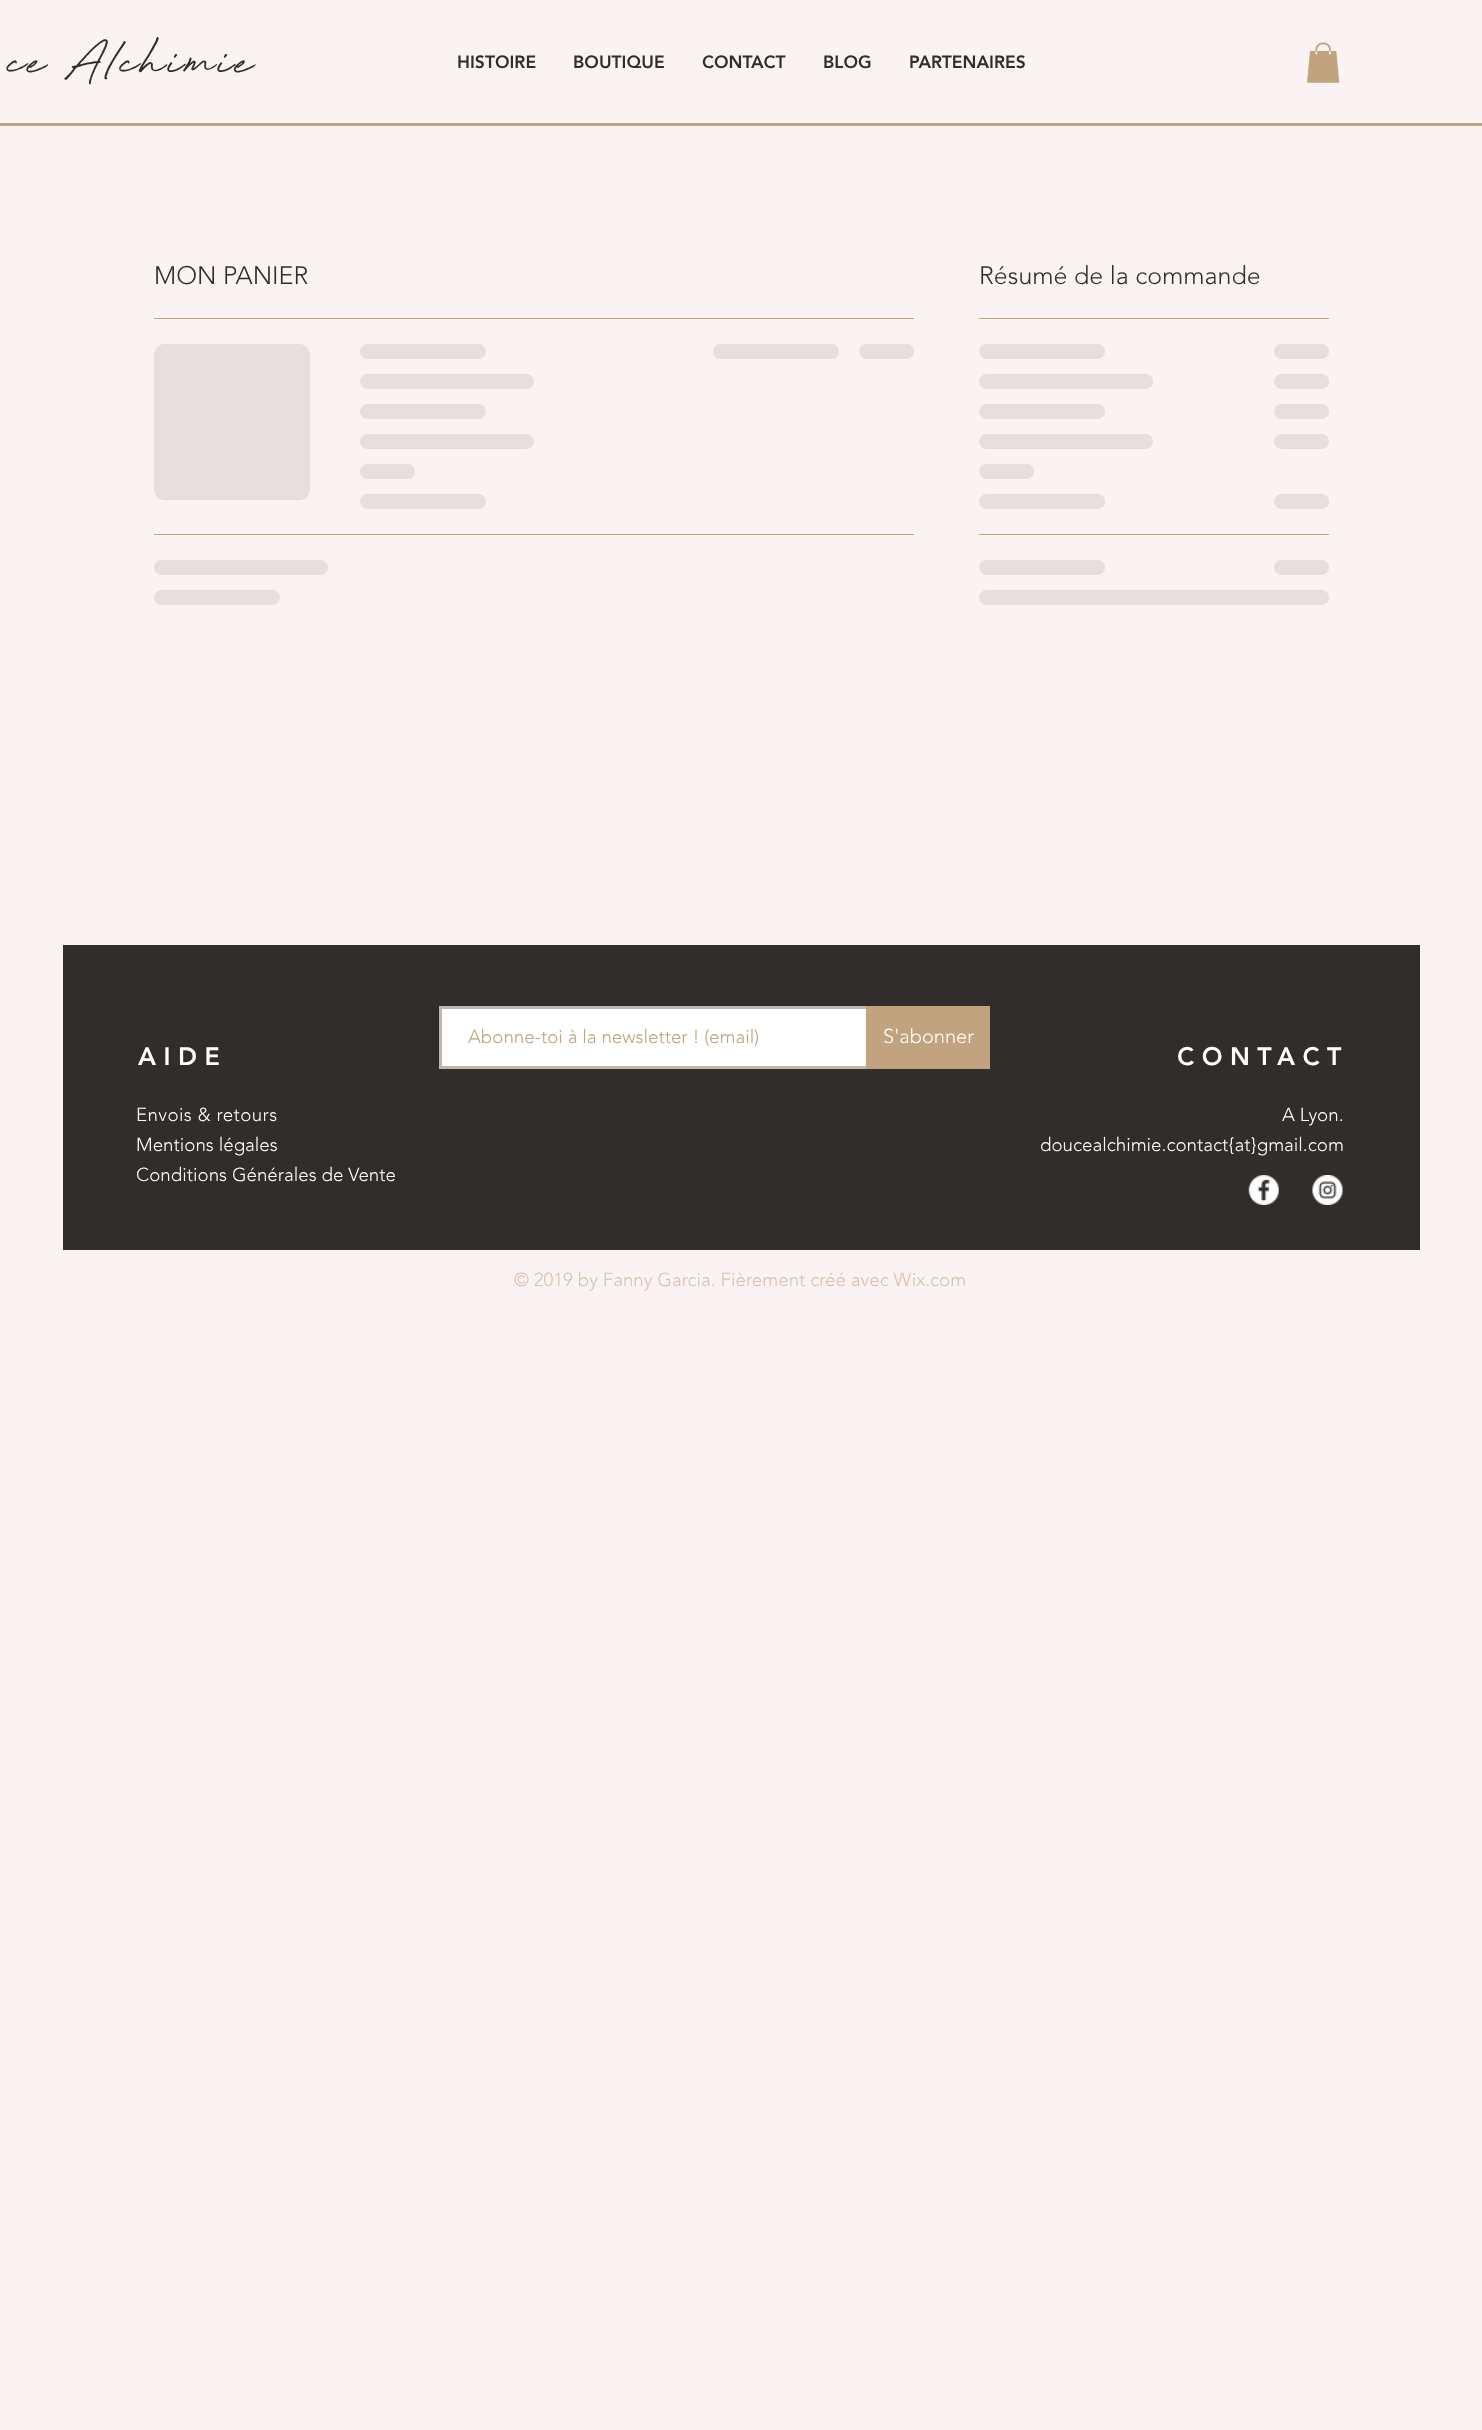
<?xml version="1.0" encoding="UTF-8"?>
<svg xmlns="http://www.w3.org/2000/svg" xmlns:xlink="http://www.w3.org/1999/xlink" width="1482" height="2430">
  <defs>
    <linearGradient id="g1" gradientUnits="userSpaceOnUse" x1="154" y1="422" x2="779" y2="422"><stop offset="0.25" stop-color="#e7dfde" /><stop offset="0.37" stop-color="#d2cbc9" /><stop offset="0.63" stop-color="#e7dfde" /></linearGradient>
    <linearGradient id="g2" gradientUnits="userSpaceOnUse" x1="360" y1="351" x2="865" y2="351"><stop offset="0.25" stop-color="#e7dfde" /><stop offset="0.37" stop-color="#d2cbc9" /><stop offset="0.63" stop-color="#e7dfde" /></linearGradient>
    <linearGradient id="g3" gradientUnits="userSpaceOnUse" x1="360" y1="381" x2="1055" y2="381"><stop offset="0.25" stop-color="#e7dfde" /><stop offset="0.37" stop-color="#d2cbc9" /><stop offset="0.63" stop-color="#e7dfde" /></linearGradient>
    <linearGradient id="g4" gradientUnits="userSpaceOnUse" x1="360" y1="411" x2="865" y2="411"><stop offset="0.25" stop-color="#e7dfde" /><stop offset="0.37" stop-color="#d2cbc9" /><stop offset="0.63" stop-color="#e7dfde" /></linearGradient>
    <linearGradient id="g5" gradientUnits="userSpaceOnUse" x1="360" y1="441" x2="1055" y2="441"><stop offset="0.25" stop-color="#e7dfde" /><stop offset="0.37" stop-color="#d2cbc9" /><stop offset="0.63" stop-color="#e7dfde" /></linearGradient>
    <linearGradient id="g6" gradientUnits="userSpaceOnUse" x1="360" y1="471" x2="580" y2="471"><stop offset="0.25" stop-color="#e7dfde" /><stop offset="0.37" stop-color="#d2cbc9" /><stop offset="0.63" stop-color="#e7dfde" /></linearGradient>
    <linearGradient id="g7" gradientUnits="userSpaceOnUse" x1="360" y1="501" x2="865" y2="501"><stop offset="0.25" stop-color="#e7dfde" /><stop offset="0.37" stop-color="#d2cbc9" /><stop offset="0.63" stop-color="#e7dfde" /></linearGradient>
    <linearGradient id="g8" gradientUnits="userSpaceOnUse" x1="713" y1="351" x2="1218" y2="351"><stop offset="0.25" stop-color="#e7dfde" /><stop offset="0.37" stop-color="#d2cbc9" /><stop offset="0.63" stop-color="#e7dfde" /></linearGradient>
    <linearGradient id="g9" gradientUnits="userSpaceOnUse" x1="859" y1="351" x2="1079" y2="351"><stop offset="0.25" stop-color="#e7dfde" /><stop offset="0.37" stop-color="#d2cbc9" /><stop offset="0.63" stop-color="#e7dfde" /></linearGradient>
    <linearGradient id="g10" gradientUnits="userSpaceOnUse" x1="154" y1="568" x2="849" y2="568"><stop offset="0.25" stop-color="#e7dfde" /><stop offset="0.37" stop-color="#d2cbc9" /><stop offset="0.63" stop-color="#e7dfde" /></linearGradient>
    <linearGradient id="g11" gradientUnits="userSpaceOnUse" x1="154" y1="598" x2="659" y2="598"><stop offset="0.25" stop-color="#e7dfde" /><stop offset="0.37" stop-color="#d2cbc9" /><stop offset="0.63" stop-color="#e7dfde" /></linearGradient>
    <linearGradient id="g12" gradientUnits="userSpaceOnUse" x1="979" y1="351" x2="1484" y2="351"><stop offset="0.25" stop-color="#e7dfde" /><stop offset="0.37" stop-color="#d2cbc9" /><stop offset="0.63" stop-color="#e7dfde" /></linearGradient>
    <linearGradient id="g13" gradientUnits="userSpaceOnUse" x1="1274" y1="351" x2="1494" y2="351"><stop offset="0.25" stop-color="#e7dfde" /><stop offset="0.37" stop-color="#d2cbc9" /><stop offset="0.63" stop-color="#e7dfde" /></linearGradient>
    <linearGradient id="g14" gradientUnits="userSpaceOnUse" x1="979" y1="381" x2="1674" y2="381"><stop offset="0.25" stop-color="#e7dfde" /><stop offset="0.37" stop-color="#d2cbc9" /><stop offset="0.63" stop-color="#e7dfde" /></linearGradient>
    <linearGradient id="g15" gradientUnits="userSpaceOnUse" x1="1274" y1="381" x2="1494" y2="381"><stop offset="0.25" stop-color="#e7dfde" /><stop offset="0.37" stop-color="#d2cbc9" /><stop offset="0.63" stop-color="#e7dfde" /></linearGradient>
    <linearGradient id="g16" gradientUnits="userSpaceOnUse" x1="979" y1="411" x2="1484" y2="411"><stop offset="0.25" stop-color="#e7dfde" /><stop offset="0.37" stop-color="#d2cbc9" /><stop offset="0.63" stop-color="#e7dfde" /></linearGradient>
    <linearGradient id="g17" gradientUnits="userSpaceOnUse" x1="1274" y1="411" x2="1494" y2="411"><stop offset="0.25" stop-color="#e7dfde" /><stop offset="0.37" stop-color="#d2cbc9" /><stop offset="0.63" stop-color="#e7dfde" /></linearGradient>
    <linearGradient id="g18" gradientUnits="userSpaceOnUse" x1="979" y1="441" x2="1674" y2="441"><stop offset="0.25" stop-color="#e7dfde" /><stop offset="0.37" stop-color="#d2cbc9" /><stop offset="0.63" stop-color="#e7dfde" /></linearGradient>
    <linearGradient id="g19" gradientUnits="userSpaceOnUse" x1="1274" y1="441" x2="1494" y2="441"><stop offset="0.25" stop-color="#e7dfde" /><stop offset="0.37" stop-color="#d2cbc9" /><stop offset="0.63" stop-color="#e7dfde" /></linearGradient>
    <linearGradient id="g20" gradientUnits="userSpaceOnUse" x1="979" y1="471" x2="1199" y2="471"><stop offset="0.25" stop-color="#e7dfde" /><stop offset="0.37" stop-color="#d2cbc9" /><stop offset="0.63" stop-color="#e7dfde" /></linearGradient>
    <linearGradient id="g21" gradientUnits="userSpaceOnUse" x1="979" y1="501" x2="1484" y2="501"><stop offset="0.25" stop-color="#e7dfde" /><stop offset="0.37" stop-color="#d2cbc9" /><stop offset="0.63" stop-color="#e7dfde" /></linearGradient>
    <linearGradient id="g22" gradientUnits="userSpaceOnUse" x1="1274" y1="501" x2="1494" y2="501"><stop offset="0.25" stop-color="#e7dfde" /><stop offset="0.37" stop-color="#d2cbc9" /><stop offset="0.63" stop-color="#e7dfde" /></linearGradient>
    <linearGradient id="g23" gradientUnits="userSpaceOnUse" x1="979" y1="568" x2="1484" y2="568"><stop offset="0.25" stop-color="#e7dfde" /><stop offset="0.37" stop-color="#d2cbc9" /><stop offset="0.63" stop-color="#e7dfde" /></linearGradient>
    <linearGradient id="g24" gradientUnits="userSpaceOnUse" x1="1274" y1="568" x2="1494" y2="568"><stop offset="0.25" stop-color="#e7dfde" /><stop offset="0.37" stop-color="#d2cbc9" /><stop offset="0.63" stop-color="#e7dfde" /></linearGradient>
    <linearGradient id="g25" gradientUnits="userSpaceOnUse" x1="979" y1="598" x2="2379" y2="597"><stop offset="0.25" stop-color="#e7dfde" /><stop offset="0.37" stop-color="#d2cbc9" /><stop offset="0.63" stop-color="#e7dfde" /></linearGradient>
  </defs>
  <rect width="100%" height="100%" fill="#fbf3f3" />
  <image x="1307" y="42" width="33" height="41" xlink:href="image1.png" />
  <rect y="123" width="1482" height="3" fill="#c1a37f" />
  <rect x="154" y="318" width="760" height="1" fill="#c1a37f" />
  <rect x="154" y="344" width="156" height="156" rx="10" fill="url(#g1)" />
  <rect x="360" y="344" width="126" height="15" rx="7.5" fill="url(#g2)" />
  <rect x="360" y="374" width="174" height="15" rx="7.5" fill="url(#g3)" />
  <rect x="360" y="404" width="126" height="15" rx="7.5" fill="url(#g4)" />
  <rect x="360" y="434" width="174" height="15" rx="7.5" fill="url(#g5)" />
  <rect x="360" y="464" width="55" height="15" rx="7.5" fill="url(#g6)" />
  <rect x="360" y="494" width="126" height="15" rx="7.5" fill="url(#g7)" />
  <rect x="713" y="344" width="126" height="15" rx="7.5" fill="url(#g8)" />
  <rect x="859" y="344" width="55" height="15" rx="7.5" fill="url(#g9)" />
  <rect x="154" y="534" width="760" height="1" fill="#c1a37f" />
  <rect x="154" y="560" width="174" height="15" rx="7.5" fill="url(#g10)" />
  <rect x="154" y="590" width="126" height="15" rx="7.5" fill="url(#g11)" />
  <rect x="979" y="318" width="350" height="1" fill="#c1a37f" />
  <rect x="979" y="344" width="126" height="15" rx="7.5" fill="url(#g12)" />
  <rect x="1274" y="344" width="55" height="15" rx="7.5" fill="url(#g13)" />
  <rect x="979" y="374" width="174" height="15" rx="7.5" fill="url(#g14)" />
  <rect x="1274" y="374" width="55" height="15" rx="7.5" fill="url(#g15)" />
  <rect x="979" y="404" width="126" height="15" rx="7.5" fill="url(#g16)" />
  <rect x="1274" y="404" width="55" height="15" rx="7.5" fill="url(#g17)" />
  <rect x="979" y="434" width="174" height="15" rx="7.5" fill="url(#g18)" />
  <rect x="1274" y="434" width="55" height="15" rx="7.5" fill="url(#g19)" />
  <rect x="979" y="464" width="55" height="15" rx="7.5" fill="url(#g20)" />
  <rect x="979" y="494" width="126" height="15" rx="7.5" fill="url(#g21)" />
  <rect x="1274" y="494" width="55" height="15" rx="7.5" fill="url(#g22)" />
  <rect x="979" y="534" width="350" height="1" fill="#c1a37f" />
  <rect x="979" y="560" width="126" height="15" rx="7.5" fill="url(#g23)" />
  <rect x="1274" y="560" width="55" height="15" rx="7.5" fill="url(#g24)" />
  <rect x="979" y="590" width="350" height="15" rx="7.5" fill="url(#g25)" />
  <rect x="63" y="945" width="1357" height="305" fill="#302d2b" />
  <rect x="442" y="1009" width="424" height="57" fill="#ffffff" />
  <rect x="440.5" y="1007.5" width="449" height="60" fill="none" stroke="#c1b6ad" stroke-width="3" />
  <rect x="866" y="1006" width="124" height="63" fill="#c1a37f" />
  <image x="1248" y="1175" width="31" height="30" xlink:href="image2.png" />
  <image x="1312" y="1175" width="31" height="30" xlink:href="image3.png" />
  <text x="3" y="83" style="font-family: 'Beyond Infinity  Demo'; font-size: 62.5px; font-style: italic; letter-spacing: 3.1px; fill: #302d2b">ce Alchimie</text>
  <text x="457" y="68" style="font-family: 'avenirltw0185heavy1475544'; font-size: 17.5px; font-weight: 900; fill: #302d2b">HISTOIRE</text>
  <text x="573" y="68" style="font-family: 'avenirltw0185heavy1475544'; font-size: 17.5px; font-weight: 900; fill: #302d2b">BOUTIQUE</text>
  <text x="702" y="68" style="font-family: 'avenirltw0185heavy1475544'; font-size: 17.5px; font-weight: 900; fill: #302d2b">CONTACT</text>
  <text x="823" y="68" style="font-family: 'avenirltw0185heavy1475544'; font-size: 17.5px; font-weight: 900; fill: #302d2b">BLOG</text>
  <text x="909" y="68" style="font-family: 'avenirltw0185heavy1475544'; font-size: 17.5px; font-weight: 900; fill: #302d2b">PARTENAIRES</text>
  <text x="154" y="284" style="font-family: 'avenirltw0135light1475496'; font-size: 25px; font-weight: 300; fill: #302d2b">MON PANIER</text>
  <text x="979" y="284" style="font-family: 'avenirltw0135light1475496'; font-size: 25px; font-weight: 300; fill: #302d2b">Résumé de la commande</text>
  <text x="468" y="1043" style="font-family: 'avenirltw0135light1475496'; font-size: 18.75px; font-weight: 300; fill: #c1a37f">Abonne-toi à la newsletter ! (email)</text>
  <text x="883" y="1043" style="font-family: 'avenirltw0135light1475496'; font-size: 20px; font-weight: 300; fill: #ffffff">S'abonner</text>
  <text x="138" y="1065" style="font-family: 'avenirltw0185heavy1475544'; font-size: 25px; font-weight: 900; letter-spacing: 7.5px; fill: #ffffff">AIDE</text>
  <text x="1177" y="1065" style="font-family: 'avenirltw0185heavy1475544'; font-size: 25px; font-weight: 900; letter-spacing: 7.5px; fill: #ffffff">CONTACT</text>
  <text x="136" y="1121" style="font-family: 'avenirltw0135light1475496'; font-size: 18.75px; font-weight: 300; letter-spacing: 0.4px; fill: #ffffff">Envois &amp; retours</text>
  <text x="136" y="1151" style="font-family: 'avenirltw0135light1475496'; font-size: 18.75px; font-weight: 300; fill: #ffffff">Mentions légales</text>
  <text x="136" y="1181" style="font-family: 'avenirltw0135light1475496'; font-size: 18.75px; font-weight: 300; fill: #ffffff">Conditions Générales de Vente</text>
  <text x="1282" y="1121" style="font-family: 'avenirltw0135light1475496'; font-size: 18.75px; font-weight: 300; fill: #ffffff">A Lyon.</text>
  <text x="1040" y="1151" style="font-family: 'avenirltw0135light1475496'; font-size: 18.75px; font-weight: 300; fill: #ffffff">doucealchimie.contact{at}gmail.com</text>
  <text x="514" y="1286" style="font-family: 'avenirltw0135light1475496'; font-size: 18.75px; font-weight: 300; fill: #d9c0b2">© 2019 by Fanny Garcia. Fièrement créé avec Wix.com</text>
</svg>
